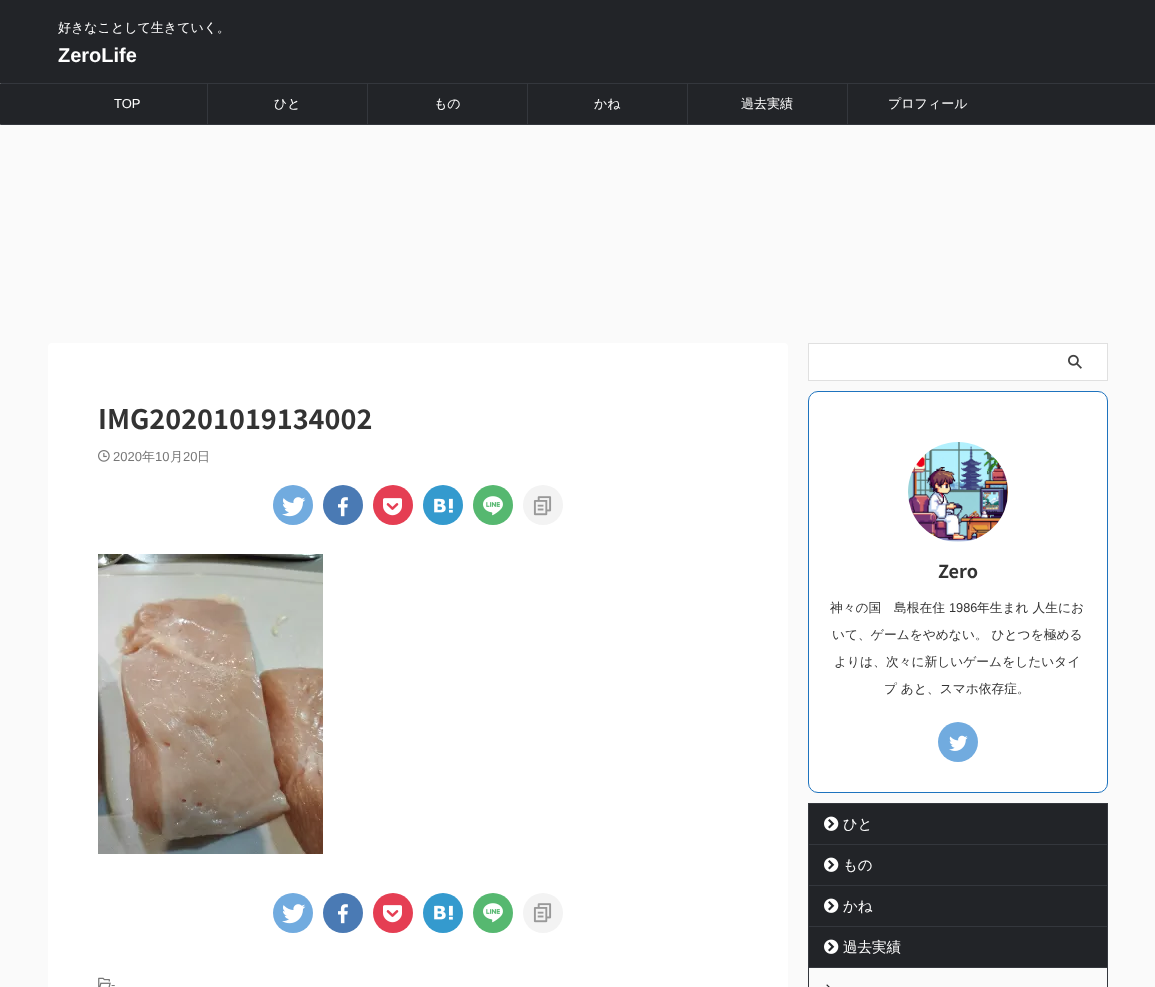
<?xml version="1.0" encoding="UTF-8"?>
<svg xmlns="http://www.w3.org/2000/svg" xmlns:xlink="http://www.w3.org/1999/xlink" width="1155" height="987">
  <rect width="100%" height="100%" fill="#fafafa" />
  <rect width="1155" height="83" fill="#222428" />
  <rect y="83" width="1155" height="42" rx="1" fill="#222428" />
  <rect x="1" y="83" width="1154" height="1" fill="#34373d" />
  <rect x="1" y="124" width="1154" height="1" fill="#34373d" />
  <rect x="207" y="84" width="1" height="40" fill="#34373d" />
  <rect x="367" y="84" width="1" height="40" fill="#34373d" />
  <rect x="527" y="84" width="1" height="40" fill="#34373d" />
  <rect x="687" y="84" width="1" height="40" fill="#34373d" />
  <rect x="847" y="84" width="1" height="40" fill="#34373d" />
  <rect x="48" y="343" width="740" height="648" rx="4" fill="#ffffff" />
  <image x="98" y="450" width="12" height="12" xlink:href="image1.png" />
  <circle cx="293" cy="505" r="20" fill="#71abdf" />
  <image x="282" y="497" width="24" height="20" xlink:href="image2.png" />
  <circle cx="343" cy="505" r="20" fill="#4a7ab4" />
  <image x="338" y="497" width="10" height="20" xlink:href="image3.png" />
  <circle cx="393" cy="505" r="20" fill="#e53e53" />
  <image x="383" y="498" width="19" height="18" xlink:href="image4.png" />
  <circle cx="443" cy="505" r="20" fill="#349ace" />
  <image x="434" y="498" width="19" height="15" xlink:href="image5.png" />
  <circle cx="493" cy="505" r="20" fill="#56b870" />
  <image x="483" y="496" width="20" height="20" xlink:href="image6.png" />
  <circle cx="543" cy="505" r="20" fill="#f3f3f3" />
  <image x="533" y="496" width="19" height="20" xlink:href="image7.png" />
  <image x="98" y="554" width="225" height="300" xlink:href="image8.png" />
  <circle cx="293" cy="913" r="20" fill="#71abdf" />
  <image x="282" y="904" width="24" height="20" xlink:href="image2.png" />
  <circle cx="343" cy="913" r="20" fill="#4a7ab4" />
  <image x="338" y="904" width="10" height="20" xlink:href="image3.png" />
  <circle cx="393" cy="913" r="20" fill="#e53e53" />
  <image x="383" y="905" width="19" height="18" xlink:href="image4.png" />
  <circle cx="443" cy="913" r="20" fill="#349ace" />
  <image x="434" y="905" width="19" height="15" xlink:href="image5.png" />
  <circle cx="493" cy="913" r="20" fill="#56b870" />
  <image x="483" y="903" width="20" height="20" xlink:href="image6.png" />
  <circle cx="543" cy="913" r="20" fill="#f3f3f3" />
  <image x="533" y="903" width="19" height="20" xlink:href="image7.png" />
  <image x="98" y="977" width="13" height="10" xlink:href="image9.png" />
  <rect x="808.5" y="343.5" width="299" height="37" fill="none" stroke="#e0e0e0" />
  <rect x="809" y="344" width="298" height="36" fill="#ffffff" />
  <image x="1068" y="354" width="14" height="15" xlink:href="image10.png" />
  <rect x="808.5" y="391.5" width="299" height="401" rx="9.5" fill="#ffffff" stroke="#1e73be" />
  <image x="908" y="442" width="100" height="100" xlink:href="image11.png" />
  <circle cx="958" cy="742" r="20" fill="#71abdf" />
  <image x="949" y="735" width="19" height="16" xlink:href="image12.png" />
  <rect x="808" y="803" width="300" height="1" fill="#34373d" />
  <rect x="1107" y="803" width="1" height="41" fill="#34373d" />
  <rect x="808" y="803" width="1" height="41" fill="#34373d" />
  <rect x="809" y="804" width="298" height="40" fill="#222428" />
  <image x="824" y="816" width="15" height="15" xlink:href="image13.png" />
  <rect x="808" y="844" width="300" height="1" fill="#34373d" />
  <rect x="1107" y="844" width="1" height="41" fill="#34373d" />
  <rect x="808" y="844" width="1" height="41" fill="#34373d" />
  <rect x="809" y="845" width="298" height="40" fill="#222428" />
  <image x="824" y="857" width="15" height="15" xlink:href="image13.png" />
  <rect x="808" y="885" width="300" height="1" fill="#34373d" />
  <rect x="1107" y="885" width="1" height="41" fill="#34373d" />
  <rect x="808" y="885" width="1" height="41" fill="#34373d" />
  <rect x="809" y="886" width="298" height="40" fill="#222428" />
  <image x="824" y="898" width="15" height="15" xlink:href="image13.png" />
  <rect x="808" y="926" width="300" height="1" fill="#34373d" />
  <rect x="1107" y="926" width="1" height="61" fill="#34373d" />
  <rect x="808" y="926" width="1" height="61" fill="#34373d" />
  <rect x="809" y="927" width="298" height="40" fill="#222428" />
  <image x="824" y="939" width="15" height="15" xlink:href="image13.png" />
  <rect x="809" y="967" width="298" height="1" fill="#34373d" />
  <image x="826" y="984" width="4" height="3" xlink:href="image14.png" />
  <text x="58" y="32" style="font-family: WenQuanYi Zen Hei; font-size: 13px; font-weight: 500; fill: #ffffff">好きなことして生きていく。</text>
  <text x="58" y="62" style="font-family: Liberation Sans; font-size: 20px; font-weight: bold; fill: #ffffff">ZeroLife</text>
  <text x="114" y="108" style="font-family: Liberation Sans; font-size: 13px; fill: #ffffff">TOP</text>
  <text x="274" y="108" style="font-family: WenQuanYi Zen Hei; font-size: 13px; font-weight: 500; fill: #ffffff">ひと</text>
  <text x="434" y="108" style="font-family: WenQuanYi Zen Hei; font-size: 13px; font-weight: 500; fill: #ffffff">もの</text>
  <text x="594" y="108" style="font-family: WenQuanYi Zen Hei; font-size: 13px; font-weight: 500; fill: #ffffff">かね</text>
  <text x="741" y="108" style="font-family: WenQuanYi Zen Hei; font-size: 13px; font-weight: 500; fill: #ffffff">過去実績</text>
  <text x="888" y="108" style="font-family: WenQuanYi Zen Hei; font-size: 13px; font-weight: 500; fill: #ffffff">プロフィール</text>
  <text x="98" y="429" style="font-family: Noto Sans JP; font-size: 27px; font-weight: bold; fill: #333333">IMG20201019134002</text>
  <text x="113" y="461" style="font-family: Liberation Sans; font-size: 13px; fill: #777777">2020</text>
  <text x="142" y="461" style="font-family: WenQuanYi Zen Hei; font-size: 13px; font-weight: 500; fill: #777777">年</text>
  <text x="155" y="461" style="font-family: Liberation Sans; font-size: 13px; fill: #777777">10</text>
  <text x="170" y="461" style="font-family: WenQuanYi Zen Hei; font-size: 13px; font-weight: 500; fill: #777777">月</text>
  <text x="183" y="461" style="font-family: Liberation Sans; font-size: 13px; fill: #777777">20</text>
  <text x="197" y="461" style="font-family: WenQuanYi Zen Hei; font-size: 13px; font-weight: 500; fill: #777777">日</text>
  <text x="111" y="989" style="font-family: Liberation Sans; font-size: 13px; fill: #777777">-</text>
  <text x="938" y="578" style="font-family: Noto Sans JP; font-size: 18px; font-weight: bold; fill: #333333">Zero</text>
  <text x="830" y="612" style="font-family: WenQuanYi Zen Hei; font-size: 12.75px; font-weight: 500; fill: #333333">神々の国　島根在住</text>
  <text x="949" y="612" style="font-family: Liberation Sans; font-size: 12.75px; fill: #333333">1986</text>
  <text x="977" y="612" style="font-family: WenQuanYi Zen Hei; font-size: 12.75px; font-weight: 500; fill: #333333">年生まれ 人生にお</text>
  <text x="832" y="639" style="font-family: WenQuanYi Zen Hei; font-size: 12.75px; font-weight: 500; fill: #333333">いて、ゲームをやめない。 ひとつを極める</text>
  <text x="834" y="666" style="font-family: WenQuanYi Zen Hei; font-size: 12.75px; font-weight: 500; fill: #333333">よりは、次々に新しいゲームをしたいタイ</text>
  <text x="884" y="693" style="font-family: WenQuanYi Zen Hei; font-size: 12.75px; font-weight: 500; fill: #333333">プ あと、スマホ依存症。</text>
  <text x="843" y="829" style="font-family: WenQuanYi Zen Hei; font-size: 14.5px; font-weight: 500; fill: #ffffff">ひと</text>
  <text x="843" y="870" style="font-family: WenQuanYi Zen Hei; font-size: 14.5px; font-weight: 500; fill: #ffffff">もの</text>
  <text x="843" y="911" style="font-family: WenQuanYi Zen Hei; font-size: 14.5px; font-weight: 500; fill: #ffffff">かね</text>
  <text x="843" y="952" style="font-family: WenQuanYi Zen Hei; font-size: 14.5px; font-weight: 500; fill: #ffffff">過去実績</text>
</svg>
